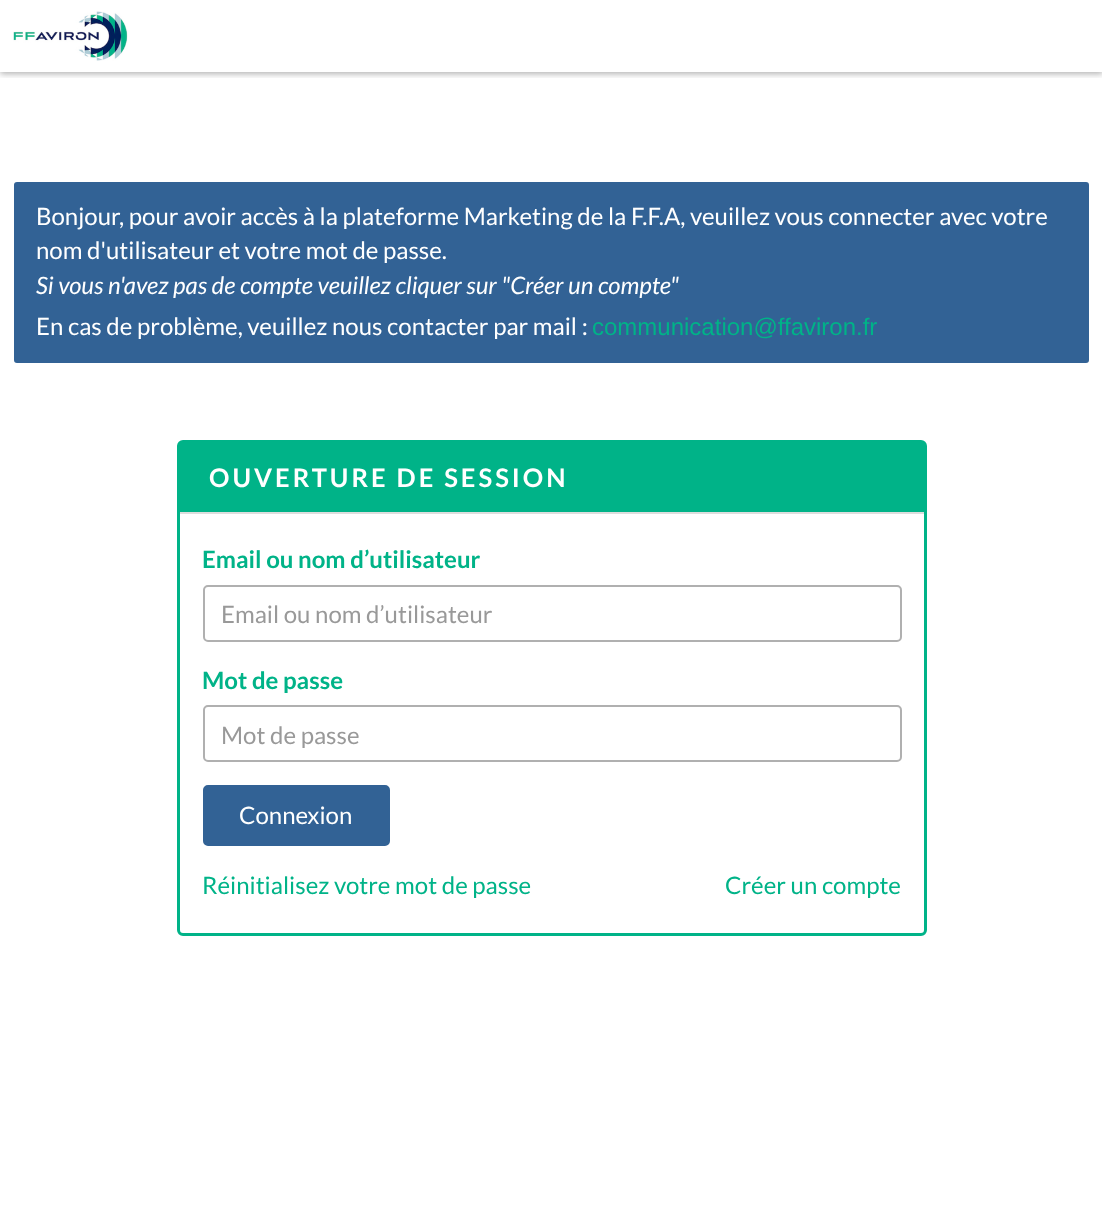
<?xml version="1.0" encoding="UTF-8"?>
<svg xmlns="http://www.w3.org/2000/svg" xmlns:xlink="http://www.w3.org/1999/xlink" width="1102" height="1228">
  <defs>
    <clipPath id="clip1"><rect x="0" y="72" width="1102" height="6" /></clipPath>
  </defs>
  <rect width="100%" height="100%" fill="#ffffff" />
  <g clip-path="url(#clip1)">
    <rect y="2" width="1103" height="72" fill="#000000" fill-opacity="0.3" filter="blur(3px)" />
  </g>
  <image x="13" y="11" width="115" height="50" xlink:href="image1.png" />
  <rect x="13" y="181" width="1077" height="183" rx="4" fill="#326295" stroke="#ffffff" stroke-width="2" />
  <rect x="178.5" y="441.5" width="747" height="493" rx="4.5" fill="none" stroke="#00b388" stroke-width="3" />
  <rect x="180" y="443" width="744" height="69" fill="#00b388" />
  <rect x="180" y="512" width="744" height="2" fill="#dddddd" />
  <rect x="204" y="586" width="697" height="55" rx="4" fill="none" stroke="#b0b0b0" stroke-width="2" />
  <rect x="204" y="706" width="697" height="55" rx="4" fill="none" stroke="#b0b0b0" stroke-width="2" />
  <rect x="204" y="786" width="185" height="59" rx="4" fill="#326295" stroke="#326295" stroke-width="2" />
  <text x="36" y="225" style="font-family: Lato; font-size: 24px; fill: #ffffff">Bonjour, pour avoir accès à la plateforme Marketing de la F.F.A, veuillez vous connecter avec votre</text>
  <text x="36" y="259" style="font-family: Lato; font-size: 24px; fill: #ffffff">nom d'utilisateur et votre mot de passe.</text>
  <text x="36" y="294" style="font-family: Lato; font-size: 24px; font-style: italic; fill: #ffffff">Si vous n'avez pas de compte veuillez cliquer sur "Créer un compte"</text>
  <text x="36" y="335" style="font-family: Lato; font-size: 24px; fill: #ffffff">En cas de problème, veuillez nous contacter par mail :</text>
  <text x="592" y="335" style="font-family: Liberation Sans; font-size: 24px; fill: #00b388">communication@ffaviron.fr</text>
  <text x="209" y="487" style="font-family: Lato; font-size: 25.5px; font-weight: bold; letter-spacing: 3px; fill: #ffffff">OUVERTURE DE SESSION</text>
  <text x="202" y="568" style="font-family: Lato; font-size: 24px; font-weight: bold; fill: #00b388">Email ou nom d’utilisateur</text>
  <text x="221" y="623" style="font-family: Lato; font-size: 24px; fill: #999999">Email ou nom d’utilisateur</text>
  <text x="202" y="689" style="font-family: Lato; font-size: 24px; font-weight: bold; fill: #00b388">Mot de passe</text>
  <text x="221" y="744" style="font-family: Lato; font-size: 24px; fill: #999999">Mot de passe</text>
  <text x="239" y="824" style="font-family: Lato; font-size: 24px; fill: #ffffff">Connexion</text>
  <text x="202" y="894" style="font-family: Lato; font-size: 24px; fill: #00b388">Réinitialisez votre mot de passe</text>
  <text x="725" y="894" style="font-family: Lato; font-size: 24px; fill: #00b388">Créer un compte</text>
</svg>
